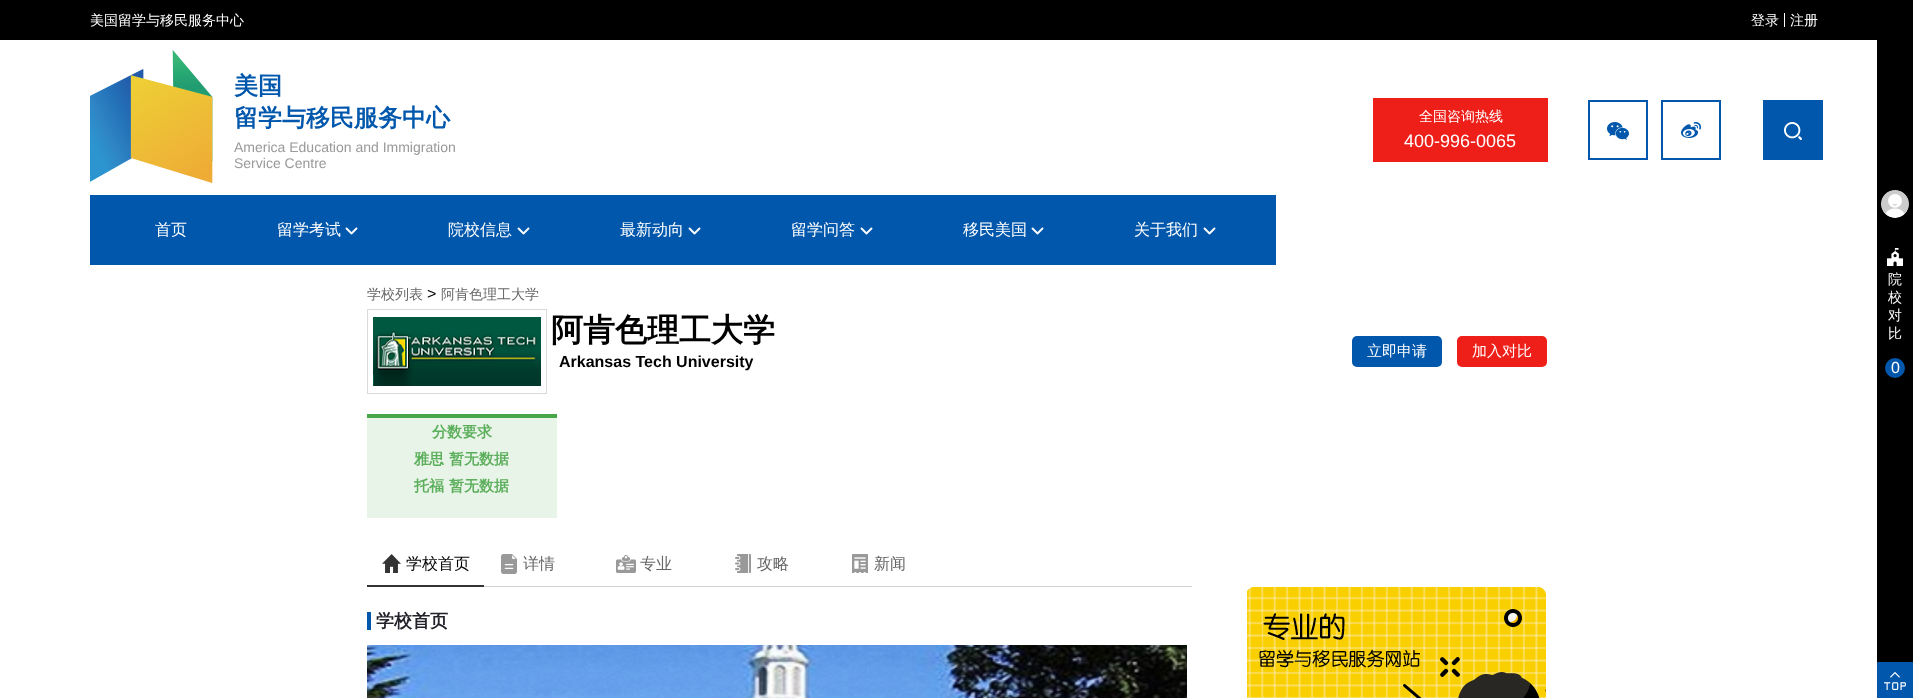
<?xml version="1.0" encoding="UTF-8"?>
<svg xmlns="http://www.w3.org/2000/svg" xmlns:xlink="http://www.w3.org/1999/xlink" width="1913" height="698">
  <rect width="100%" height="100%" fill="#ffffff" />
  <rect width="1877" height="40" fill="#000000" />
  <rect x="1784" y="13" width="1" height="14" fill="#ffffff" />
  <image x="90" y="50" width="123" height="133" xlink:href="image1.png" />
  <rect x="1373" y="98" width="175" height="64" fill="#ee1e19" />
  <rect x="1589" y="101" width="58" height="58" fill="none" stroke="#0057ac" stroke-width="2" />
  <image x="1607" y="122" width="22" height="18" xlink:href="image2.png" />
  <rect x="1662" y="101" width="58" height="58" fill="none" stroke="#0057ac" stroke-width="2" />
  <image x="1681" y="122" width="20" height="16" xlink:href="image3.png" />
  <rect x="1763" y="100" width="60" height="60" fill="#0057ac" />
  <image x="1784" y="122" width="18" height="18" xlink:href="image4.png" />
  <rect x="90" y="195" width="1186" height="70" fill="#0057ac" />
  <image x="345" y="227" width="13" height="8" xlink:href="image5.png" />
  <image x="517" y="227" width="13" height="8" xlink:href="image5.png" />
  <image x="688" y="227" width="13" height="8" xlink:href="image5.png" />
  <image x="860" y="227" width="13" height="8" xlink:href="image5.png" />
  <image x="1031" y="227" width="13" height="8" xlink:href="image5.png" />
  <image x="1203" y="227" width="13" height="8" xlink:href="image5.png" />
  <rect x="367.5" y="309.5" width="179" height="84" fill="none" stroke="#dadada" />
  <image x="373" y="317" width="168" height="69" xlink:href="image6.png" />
  <rect x="1352" y="336" width="90" height="31" rx="5" fill="#0057ac" />
  <rect x="1457" y="336" width="90" height="31" rx="5" fill="#ee1e19" />
  <rect x="367" y="418" width="190" height="100" fill="#e8f4e7" />
  <rect x="367" y="414" width="190" height="4" fill="#47a648" />
  <rect x="484" y="586" width="708" height="1" fill="#d3d2d2" />
  <rect x="367" y="585" width="117" height="2" fill="#333333" />
  <image x="382" y="554" width="19" height="19" xlink:href="image7.png" />
  <image x="501" y="554" width="16" height="20" xlink:href="image8.png" />
  <image x="616" y="555" width="20" height="18" xlink:href="image9.png" />
  <image x="735" y="554" width="16" height="19" xlink:href="image10.png" />
  <image x="852" y="554" width="16" height="19" xlink:href="image11.png" />
  <rect x="367" y="612" width="4" height="18" fill="#0057ac" />
  <image x="367" y="645" width="820" height="53" xlink:href="image12.png" />
  <image x="1247" y="587" width="299" height="111" xlink:href="image13.png" />
  <rect x="1877" width="36" height="662" fill="#000000" />
  <image x="1881" y="190" width="28" height="28" xlink:href="image14.png" />
  <image x="1887" y="248" width="16" height="18" xlink:href="image15.png" />
  <circle cx="1895" cy="368" r="10" fill="#0057ac" />
  <rect x="1877" y="662" width="36" height="36" fill="#0057ac" />
  <image x="1884" y="672" width="22" height="18" xlink:href="image16.png" />
  <text x="90" y="25" style="font-family: WenQuanYi Zen Hei; font-size: 14px; font-weight: 500; fill: #ffffff">美国留学与移民服务中心</text>
  <text x="1751" y="25" style="font-family: WenQuanYi Zen Hei; font-size: 14px; font-weight: 500; fill: #ffffff">登录</text>
  <text x="1790" y="25" style="font-family: WenQuanYi Zen Hei; font-size: 14px; font-weight: 500; fill: #ffffff">注册</text>
  <text x="234" y="94" style="font-family: WenQuanYi Zen Hei; font-size: 24px; font-weight: bold; fill: #0057ac">美国</text>
  <text x="234" y="126" style="font-family: WenQuanYi Zen Hei; font-size: 24px; font-weight: bold; fill: #0057ac">留学与移民服务中心</text>
  <text x="234" y="152" style="font-family: Liberation Sans; font-size: 14px; fill: #999999">America Education and Immigration</text>
  <text x="234" y="168" style="font-family: Liberation Sans; font-size: 14px; fill: #999999">Service Centre</text>
  <text x="1419" y="121" style="font-family: WenQuanYi Zen Hei; font-size: 14px; font-weight: 500; fill: #ffffff">全国咨询热线</text>
  <text x="1404" y="147" style="font-family: Liberation Sans; font-size: 18px; fill: #ffffff">400-996-0065</text>
  <text x="155" y="235" style="font-family: WenQuanYi Zen Hei; font-size: 16px; font-weight: 500; fill: #ffffff">首页</text>
  <text x="277" y="235" style="font-family: WenQuanYi Zen Hei; font-size: 16px; font-weight: 500; fill: #ffffff">留学考试</text>
  <text x="448" y="235" style="font-family: WenQuanYi Zen Hei; font-size: 16px; font-weight: 500; fill: #ffffff">院校信息</text>
  <text x="620" y="235" style="font-family: WenQuanYi Zen Hei; font-size: 16px; font-weight: 500; fill: #ffffff">最新动向</text>
  <text x="791" y="235" style="font-family: WenQuanYi Zen Hei; font-size: 16px; font-weight: 500; fill: #ffffff">留学问答</text>
  <text x="963" y="235" style="font-family: WenQuanYi Zen Hei; font-size: 16px; font-weight: 500; fill: #ffffff">移民美国</text>
  <text x="1134" y="235" style="font-family: WenQuanYi Zen Hei; font-size: 16px; font-weight: 500; fill: #ffffff">关于我们</text>
  <text x="367" y="299" style="font-family: WenQuanYi Zen Hei; font-size: 14px; font-weight: 500; fill: #666666">学校列表</text>
  <text x="427" y="299" style="font-family: Liberation Sans; font-size: 16px; fill: #000000">&gt;</text>
  <text x="441" y="299" style="font-family: WenQuanYi Zen Hei; font-size: 14px; font-weight: 500; fill: #666666">阿肯色理工大学</text>
  <text x="551" y="341" style="font-family: WenQuanYi Zen Hei; font-size: 32px; font-weight: bold; fill: #000000">阿肯色理工大学</text>
  <text x="559" y="367" style="font-family: Liberation Sans; font-size: 16px; font-weight: bold; fill: #000000">Arkansas Tech University</text>
  <text x="1367" y="356" style="font-family: WenQuanYi Zen Hei; font-size: 15px; font-weight: 500; fill: #ffffff">立即申请</text>
  <text x="1472" y="356" style="font-family: WenQuanYi Zen Hei; font-size: 15px; font-weight: 500; fill: #ffffff">加入对比</text>
  <text x="432" y="437" style="font-family: WenQuanYi Zen Hei; font-size: 15px; font-weight: bold; fill: #5bae5b">分数要求</text>
  <text x="414" y="464" style="font-family: WenQuanYi Zen Hei; font-size: 15px; font-weight: bold; fill: #5bae5b">雅思</text>
  <text x="449" y="464" style="font-family: WenQuanYi Zen Hei; font-size: 15px; font-weight: bold; fill: #5bae5b">暂无数据</text>
  <text x="414" y="491" style="font-family: WenQuanYi Zen Hei; font-size: 15px; font-weight: bold; fill: #5bae5b">托福</text>
  <text x="449" y="491" style="font-family: WenQuanYi Zen Hei; font-size: 15px; font-weight: bold; fill: #5bae5b">暂无数据</text>
  <text x="406" y="569" style="font-family: WenQuanYi Zen Hei; font-size: 16px; font-weight: 500; fill: #000000">学校首页</text>
  <text x="523" y="569" style="font-family: WenQuanYi Zen Hei; font-size: 16px; font-weight: 500; fill: #666666">详情</text>
  <text x="640" y="569" style="font-family: WenQuanYi Zen Hei; font-size: 16px; font-weight: 500; fill: #666666">专业</text>
  <text x="757" y="569" style="font-family: WenQuanYi Zen Hei; font-size: 16px; font-weight: 500; fill: #666666">攻略</text>
  <text x="874" y="569" style="font-family: WenQuanYi Zen Hei; font-size: 16px; font-weight: 500; fill: #666666">新闻</text>
  <text x="376" y="627" style="font-family: WenQuanYi Zen Hei; font-size: 18px; font-weight: bold; fill: #22222a">学校首页</text>
  <text x="1888" y="284" style="font-family: WenQuanYi Zen Hei; font-size: 14px; font-weight: 500; fill: #ffffff">院</text>
  <text x="1888" y="302" style="font-family: WenQuanYi Zen Hei; font-size: 14px; font-weight: 500; fill: #ffffff">校</text>
  <text x="1888" y="320" style="font-family: WenQuanYi Zen Hei; font-size: 14px; font-weight: 500; fill: #ffffff">对</text>
  <text x="1888" y="338" style="font-family: WenQuanYi Zen Hei; font-size: 14px; font-weight: 500; fill: #ffffff">比</text>
  <text x="1891" y="373" style="font-family: Liberation Sans; font-size: 16px; fill: #ffffff">0</text>
</svg>
